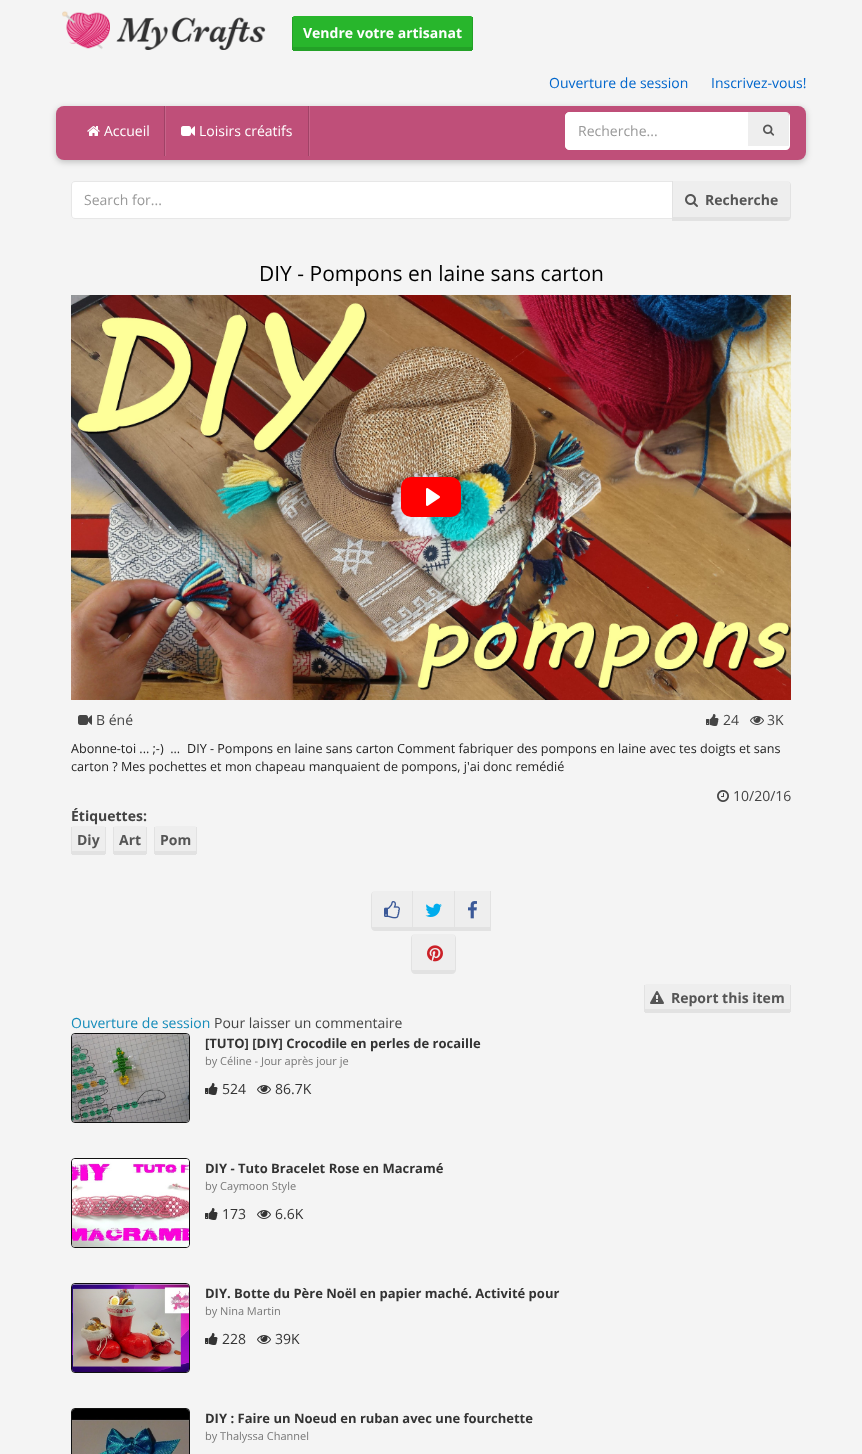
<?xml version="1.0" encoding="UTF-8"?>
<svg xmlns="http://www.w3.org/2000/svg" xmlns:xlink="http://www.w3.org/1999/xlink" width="862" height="1454">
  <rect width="100%" height="100%" fill="#f4f4f4" />
  <image x="62" y="11" width="204" height="39" xlink:href="image1.png" />
  <path d="M 294 16 h 177 c 1 0 1 1 1 2 v 29 h -179 v -29 c 0 -1 0 -2 1 -2 z" fill="#28b62c" />
  <rect x="472" y="17" width="1" height="33" fill="#23a127" />
  <rect x="293" y="47" width="179" height="4" fill="#23a127" />
  <rect x="292" y="17" width="1" height="33" fill="#23a127" />
  <rect x="56" y="108" width="750" height="54" rx="8" fill="#000000" fill-opacity="0.22" filter="blur(3px)" />
  <rect x="56" y="106" width="750" height="54" rx="8" fill="#bf4f79" />
  <rect x="164" y="106" width="1" height="50" fill="#a04266" />
  <image x="87" y="126" width="13" height="10" xlink:href="image2.png" />
  <rect x="308" y="106" width="1" height="50" fill="#a04266" />
  <rect x="165" y="106" width="1" height="50" fill="#c76489" />
  <image x="181" y="126" width="14" height="10" xlink:href="image3.png" />
  <rect x="309" y="106" width="1" height="50" fill="#c76489" />
  <path d="M 569 112.5 h 178.5 v 37 h -178.5 c -2 0 -3.5 -1.5 -3.5 -3.5 v -30 c 0 -2 1.5 -3.5 3.5 -3.5 z" fill="#ffffff" stroke="#ffffff" />
  <path d="M 748 112 h 38 c 2 0 3 2 3 4 v 30 h -41 z" fill="#eeeeee" />
  <path d="M 747 112 h 39 c 2 0 4 2 4 4 v 30 c 0 2 -2 4 -4 4 h -39 z m 1 0 h 38 c 2 0 3 2 3 4 v 30 h -41 z" fill="#ffffff" fill-rule="evenodd" />
  <image x="763" y="124" width="12" height="12" xlink:href="image4.png" />
  <path d="M 75 181.5 h 597.5 v 37 h -597.5 c -2 0 -3.5 -1.5 -3.5 -3.5 v -30 c 0 -2 1.5 -3.5 3.5 -3.5 z" fill="#ffffff" stroke="#e7e7e7" />
  <path d="M 673 181 h 114 c 2 0 3 2 3 4 v 32 h -117 z" fill="#eeeeee" />
  <path d="M 672 181 h 115 c 2 0 4 2 4 4 v 32 c 0 2 -2 4 -4 4 h -115 z m 1 0 h 114 c 2 0 3 2 3 4 v 32 h -117 z" fill="#e2e2e2" fill-rule="evenodd" />
  <image x="685" y="194" width="13" height="13" xlink:href="image5.png" />
  <image x="71" y="295" width="720" height="405" xlink:href="image6.png" />
  <rect x="401" y="477" width="60" height="40" rx="10" fill="#ff0000" />
  <image x="426" y="488" width="14" height="18" xlink:href="image7.png" />
  <image x="78" y="715" width="14" height="10" xlink:href="image8.png" />
  <image x="706" y="714" width="13" height="12" xlink:href="image9.png" />
  <image x="750" y="716" width="14" height="9" xlink:href="image10.png" />
  <image x="717" y="790" width="12" height="12" xlink:href="image11.png" />
  <path d="M 73 826 h 31 c 0.5 0 1 1 1 2 v 23 h -33 v -24 z" fill="#eeeeee" />
  <rect x="105" y="827" width="1" height="27" fill="#e2e2e2" />
  <rect x="72" y="851" width="33" height="4" fill="#e2e2e2" />
  <rect x="71" y="827" width="1" height="27" fill="#e2e2e2" />
  <path d="M 115 826 h 30 c 0.5 0 1 1 1 2 v 23 h -32 v -24 z" fill="#eeeeee" />
  <rect x="146" y="827" width="1" height="27" fill="#e2e2e2" />
  <rect x="114" y="851" width="32" height="4" fill="#e2e2e2" />
  <rect x="113" y="827" width="1" height="27" fill="#e2e2e2" />
  <path d="M 156 826 h 39 c 1 0 1 1 1 2 v 23 h -41 v -24 z" fill="#eeeeee" />
  <rect x="196" y="827" width="1" height="27" fill="#e2e2e2" />
  <rect x="155" y="851" width="41" height="4" fill="#e2e2e2" />
  <rect x="154" y="827" width="1" height="27" fill="#e2e2e2" />
  <path d="M 375 891 h 37 v 36 h -40 v -32 c 0 -2 1 -4 3 -4 z" fill="#eeeeee" />
  <path d="M 375 891 h 38 v 40 h -38 c -2 0 -4 -2 -4 -4 v -32 c 0 -2 2 -4 4 -4 z m 0 0 h 37 v 36 h -40 v -32 c 0 -2 1 -4 3 -4 z" fill="#e2e2e2" fill-rule="evenodd" />
  <image x="384" y="901" width="16" height="18" xlink:href="image12.png" />
  <rect x="413" y="891" width="41" height="36" fill="#eeeeee" />
  <rect x="454" y="891" width="1" height="40" fill="#e2e2e2" />
  <rect x="412" y="927" width="43" height="4" fill="#e2e2e2" />
  <image x="425" y="903" width="17" height="14" xlink:href="image13.png" />
  <rect x="455" y="891" width="35" height="36" fill="#eeeeee" />
  <rect x="490" y="891" width="1" height="40" fill="#e2e2e2" />
  <rect x="454" y="927" width="37" height="4" fill="#e2e2e2" />
  <image x="468" y="901" width="9" height="18" xlink:href="image14.png" />
  <path d="M 415 934 h 37 c 2 0 3 2 3 4 v 32 h -43 v -32 c 0 -2 1 -4 3 -4 z" fill="#eeeeee" />
  <path d="M 415 934 h 37 c 2 0 4 2 4 4 v 32 c 0 2 -2 4 -4 4 h -37 c -2 0 -4 -2 -4 -4 v -32 c 0 -2 2 -4 4 -4 z m 0 0 h 37 c 2 0 3 2 3 4 v 32 h -43 v -32 c 0 -2 1 -4 3 -4 z" fill="#e2e2e2" fill-rule="evenodd" />
  <image x="427" y="945" width="16" height="17" xlink:href="image15.png" />
  <path d="M 646 984 h 143 c 1 0 1 1 1 2 v 23 h -145 v -24 z" fill="#eeeeee" />
  <rect x="790" y="985" width="1" height="27" fill="#e2e2e2" />
  <rect x="645" y="1009" width="145" height="4" fill="#e2e2e2" />
  <rect x="644" y="985" width="1" height="27" fill="#e2e2e2" />
  <image x="650" y="991" width="14" height="13" xlink:href="image16.png" />
  <rect x="71.5" y="1033.5" width="118" height="89" rx="3.5" fill="none" stroke="#111111" />
  <image x="72" y="1034" width="117" height="88" xlink:href="image17.png" />
  <image x="205" y="1083" width="13" height="12" xlink:href="image18.png" />
  <image x="257" y="1085" width="14" height="9" xlink:href="image19.png" />
  <rect x="71.5" y="1158.5" width="118" height="89" rx="3.5" fill="none" stroke="#111111" />
  <image x="72" y="1159" width="117" height="88" xlink:href="image20.png" />
  <image x="205" y="1208" width="13" height="12" xlink:href="image18.png" />
  <image x="257" y="1210" width="14" height="9" xlink:href="image19.png" />
  <rect x="71.5" y="1283.5" width="118" height="89" rx="3.5" fill="none" stroke="#111111" />
  <image x="72" y="1284" width="117" height="88" xlink:href="image21.png" />
  <image x="205" y="1333" width="13" height="12" xlink:href="image18.png" />
  <image x="257" y="1335" width="14" height="9" xlink:href="image19.png" />
  <rect x="71.5" y="1408.5" width="118" height="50" rx="3.5" fill="none" stroke="#111111" />
  <image x="72" y="1409" width="117" height="45" xlink:href="image22.png" />
  <text x="303" y="38" style="font-family: Open Sans; font-size: 14px; font-weight: bold; fill: #ffffff">Vendre votre artisanat</text>
  <text x="549" y="88" style="font-family: Open Sans; font-size: 14px; fill: #0066cc">Ouverture de session</text>
  <text x="711" y="88" style="font-family: Open Sans; font-size: 14px; fill: #0066cc">Inscrivez-vous!</text>
  <text x="104" y="136" style="font-family: Open Sans; font-size: 14px; fill: #ffffff">Accueil</text>
  <text x="199" y="136" style="font-family: Open Sans; font-size: 14px; fill: #ffffff">Loisirs créatifs</text>
  <text x="578" y="136" style="font-family: Open Sans; font-size: 14px; fill: #999999">Recherche...</text>
  <text x="84" y="205" style="font-family: Open Sans; font-size: 14px; fill: #999999">Search for...</text>
  <text x="705" y="205" style="font-family: Open Sans; font-size: 14px; font-weight: bold; fill: #555555">Recherche</text>
  <text x="259" y="281" style="font-family: Open Sans; font-size: 21px; fill: #000000">DIY - Pompons en laine sans carton</text>
  <text x="96" y="725" style="font-family: Open Sans; font-size: 14px; fill: #444444">B éné</text>
  <text x="723" y="725" style="font-family: Open Sans; font-size: 14px; fill: #444444">24</text>
  <text x="767" y="725" style="font-family: Open Sans; font-size: 14px; fill: #444444">3K</text>
  <text x="71" y="753" style="font-family: Open Sans; font-size: 12.6px; fill: #222222" xml:space="preserve">Abonne-toi ... ;-)  ...</text>
  <text x="187" y="753" style="font-family: Open Sans; font-size: 12.6px; fill: #222222">DIY - Pompons en laine sans carton Comment fabriquer des pompons en laine avec tes doigts et sans</text>
  <text x="71" y="771" style="font-family: Open Sans; font-size: 12.6px; fill: #222222">carton ? Mes pochettes et mon chapeau manquaient de pompons, j'ai donc remédié</text>
  <text x="733" y="801" style="font-family: Open Sans; font-size: 14px; fill: #444444">10/20/16</text>
  <text x="71" y="821" style="font-family: Open Sans; font-size: 14px; font-weight: bold; fill: #444444">Étiquettes:</text>
  <text x="77" y="845" style="font-family: Open Sans; font-size: 14px; font-weight: bold; fill: #555555">Diy</text>
  <text x="119" y="845" style="font-family: Open Sans; font-size: 14px; font-weight: bold; fill: #555555">Art</text>
  <text x="160" y="845" style="font-family: Open Sans; font-size: 14px; font-weight: bold; fill: #555555">Pom</text>
  <text x="671" y="1003" style="font-family: Open Sans; font-size: 14px; font-weight: bold; fill: #555555">Report this item</text>
  <text x="71" y="1028" style="font-family: Open Sans; font-size: 14px; fill: #158cba">Ouverture de session</text>
  <text x="214" y="1028" style="font-family: Open Sans; font-size: 14px; fill: #444444">Pour laisser un commentaire</text>
  <text x="205" y="1048" style="font-family: Open Sans; font-size: 13px; font-weight: bold; fill: #333333">[TUTO] [DIY] Crocodile en perles de rocaille</text>
  <text x="205" y="1065" style="font-family: Open Sans; font-size: 11px; fill: #777777">by Céline - Jour après jour je</text>
  <text x="222" y="1094" style="font-family: Open Sans; font-size: 14px; fill: #333333">524</text>
  <text x="275" y="1094" style="font-family: Open Sans; font-size: 14px; fill: #333333">86.7K</text>
  <text x="205" y="1173" style="font-family: Open Sans; font-size: 13px; font-weight: bold; fill: #333333">DIY - Tuto Bracelet Rose en Macramé</text>
  <text x="205" y="1190" style="font-family: Open Sans; font-size: 11px; fill: #777777">by Caymoon Style</text>
  <text x="222" y="1219" style="font-family: Open Sans; font-size: 14px; fill: #333333">173</text>
  <text x="275" y="1219" style="font-family: Open Sans; font-size: 14px; fill: #333333">6.6K</text>
  <text x="205" y="1298" style="font-family: Open Sans; font-size: 13px; font-weight: bold; fill: #333333">DIY. Botte du Père Noël en papier maché. Activité pour</text>
  <text x="205" y="1315" style="font-family: Open Sans; font-size: 11px; fill: #777777">by Nina Martin</text>
  <text x="222" y="1344" style="font-family: Open Sans; font-size: 14px; fill: #333333">228</text>
  <text x="275" y="1344" style="font-family: Open Sans; font-size: 14px; fill: #333333">39K</text>
  <text x="205" y="1423" style="font-family: Open Sans; font-size: 13px; font-weight: bold; fill: #333333">DIY : Faire un Noeud en ruban avec une fourchette</text>
  <text x="205" y="1440" style="font-family: Open Sans; font-size: 11px; fill: #777777">by Thalyssa Channel</text>
</svg>
